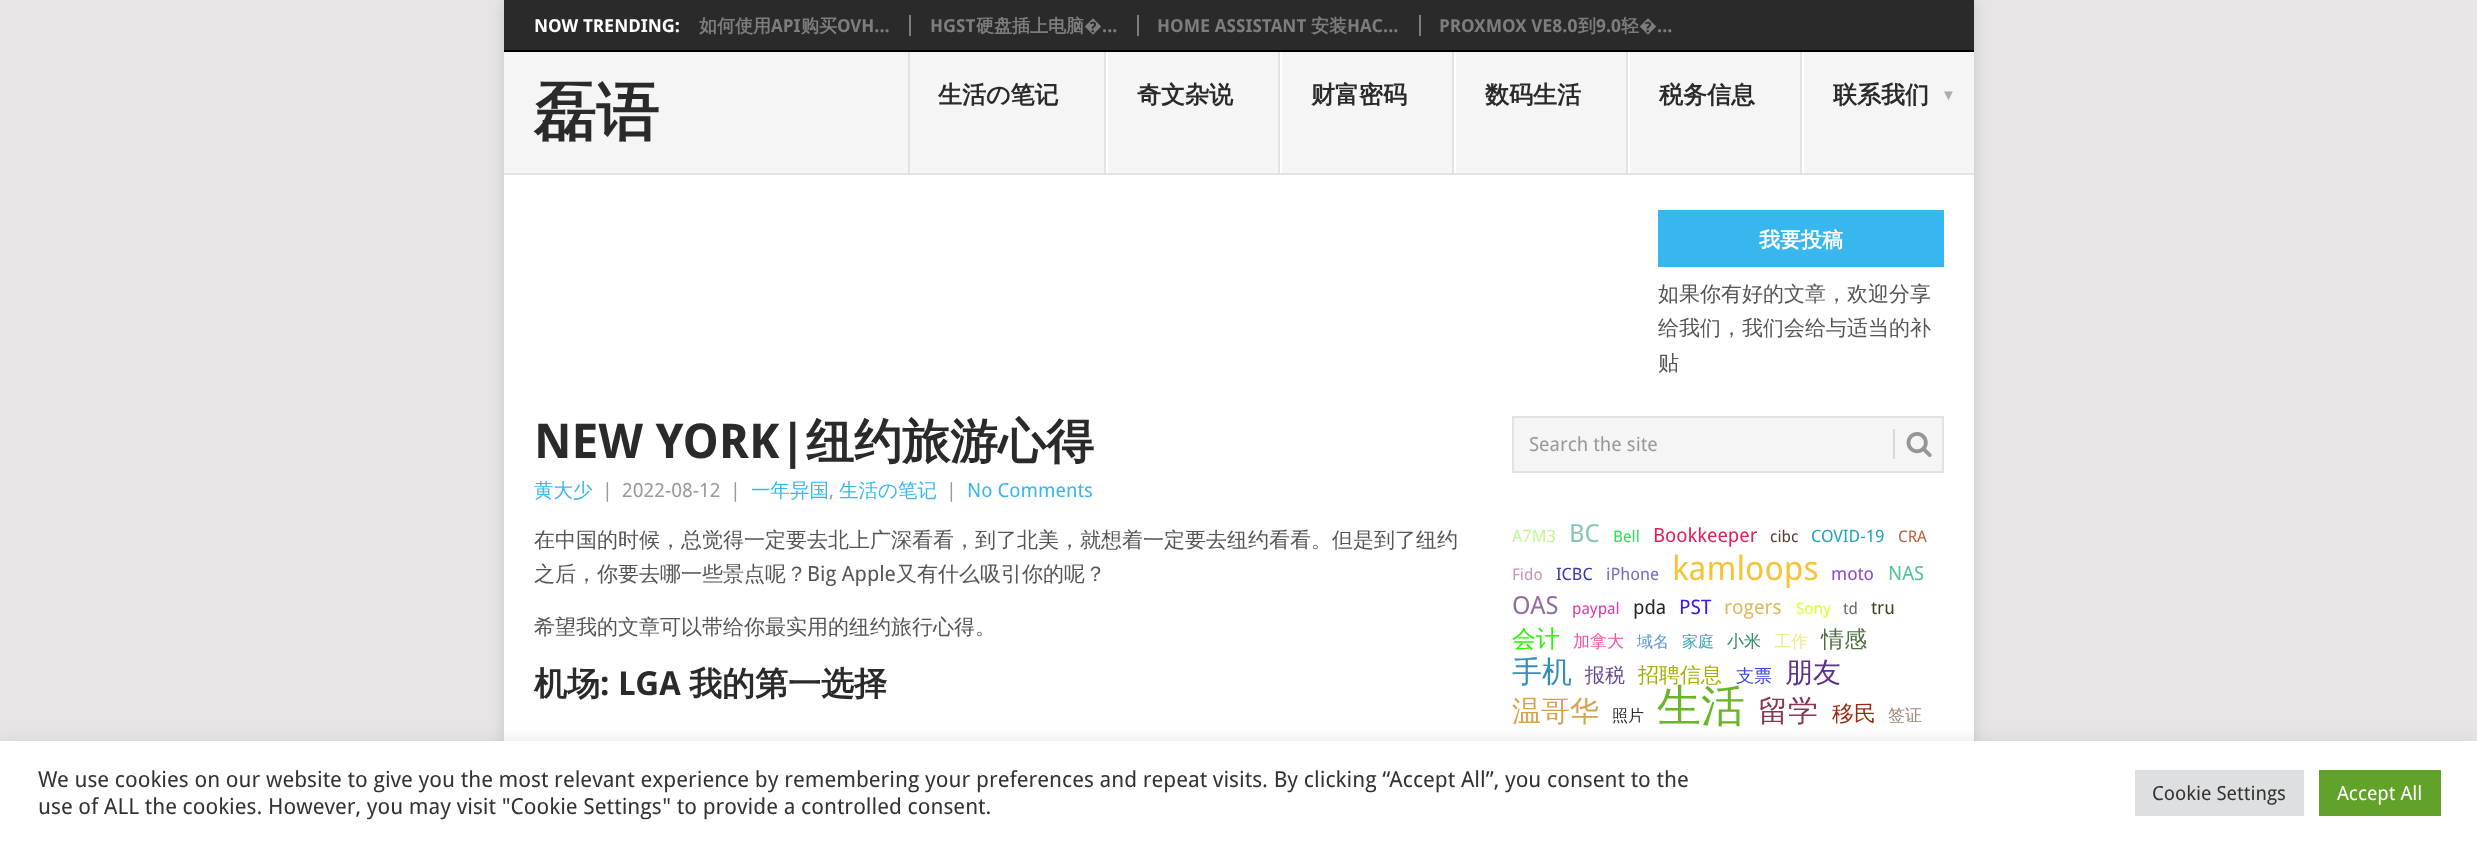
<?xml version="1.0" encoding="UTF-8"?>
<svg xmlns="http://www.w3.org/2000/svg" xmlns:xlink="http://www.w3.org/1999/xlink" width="2477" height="844">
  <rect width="100%" height="100%" fill="#e7e5e6" />
  <rect x="504" width="1470" height="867" fill="#323232" fill-opacity="0.17" filter="blur(7.5px)" />
  <rect x="504" y="175" width="1470" height="566" fill="#ffffff" />
  <rect x="504" width="1470" height="50" fill="#2a2a2a" />
  <rect x="504" y="52" width="1470" height="121" fill="#f5f5f5" />
  <rect x="1104" y="51" width="2" height="123" fill="#e2e2e2" />
  <rect x="908" y="51" width="2" height="123" fill="#e2e2e2" />
  <rect x="1278" y="51" width="2" height="123" fill="#e2e2e2" />
  <rect x="1106" y="51" width="2" height="123" fill="#ffffff" />
  <rect x="1452" y="51" width="2" height="123" fill="#e2e2e2" />
  <rect x="1280" y="51" width="2" height="123" fill="#ffffff" />
  <rect x="1626" y="51" width="2" height="123" fill="#e2e2e2" />
  <rect x="1454" y="51" width="2" height="123" fill="#ffffff" />
  <rect x="1800" y="51" width="2" height="123" fill="#e2e2e2" />
  <rect x="1628" y="51" width="2" height="123" fill="#ffffff" />
  <rect x="1802" y="51" width="2" height="123" fill="#ffffff" />
  <rect x="504" y="50" width="1470" height="2" fill="#000000" />
  <rect x="909" y="15" width="2" height="21" fill="#7d7d7d" />
  <rect x="1137" y="15" width="2" height="21" fill="#7d7d7d" />
  <rect x="1419" y="15" width="2" height="21" fill="#7d7d7d" />
  <rect x="504" y="173" width="1470" height="2" fill="#e2e2e2" />
  <rect x="1658" y="210" width="286" height="57" fill="#38b7ee" />
  <rect x="1513" y="417" width="430" height="55" fill="#f5f5f5" stroke="#e2e2e2" stroke-width="2" />
  <rect x="1893" y="429" width="2" height="30" fill="#d8d8d8" />
  <image x="1906" y="432" width="26" height="25" xlink:href="image1.png" />
  <rect y="740" width="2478" height="103" fill="#acabab" fill-opacity="0.3" filter="blur(7.5px)" />
  <rect y="741" width="2477" height="103" fill="#ffffff" />
  <rect x="2135" y="770" width="169" height="46" fill="#dedfe0" />
  <rect x="2319" y="770" width="122" height="46" fill="#61a229" />
  <text x="534" y="32" style="font-family: Droid Sans; font-size: 18px; font-weight: bold; fill: #ffffff">NOW TRENDING:</text>
  <text x="699" y="32" style="font-family: WenQuanYi Zen Hei; font-size: 18px; font-weight: bold; fill: #7d7d7d">如何使用</text>
  <text x="771" y="32" style="font-family: Droid Sans; font-size: 18px; font-weight: bold; fill: #7d7d7d">API</text>
  <text x="801" y="32" style="font-family: WenQuanYi Zen Hei; font-size: 18px; font-weight: bold; fill: #7d7d7d">购买</text>
  <text x="837" y="32" style="font-family: Droid Sans; font-size: 18px; font-weight: bold; fill: #7d7d7d">OVH...</text>
  <text x="930" y="32" style="font-family: Droid Sans; font-size: 18px; font-weight: bold; fill: #7d7d7d">HGST</text>
  <text x="976" y="32" style="font-family: WenQuanYi Zen Hei; font-size: 18px; font-weight: bold; fill: #7d7d7d">硬盘插上电脑</text>
  <text x="1084" y="32" style="font-family: Noto Sans; font-size: 18px; font-weight: bold; fill: #7d7d7d">�</text>
  <text x="1102" y="32" style="font-family: Droid Sans; font-size: 18px; font-weight: bold; fill: #7d7d7d">...</text>
  <text x="1157" y="32" style="font-family: Droid Sans; font-size: 18px; font-weight: bold; fill: #7d7d7d">HOME ASSISTANT</text>
  <text x="1311" y="32" style="font-family: WenQuanYi Zen Hei; font-size: 18px; font-weight: bold; fill: #7d7d7d">安装</text>
  <text x="1347" y="32" style="font-family: Droid Sans; font-size: 18px; font-weight: bold; fill: #7d7d7d">HAC...</text>
  <text x="1439" y="32" style="font-family: Droid Sans; font-size: 18px; font-weight: bold; fill: #7d7d7d">PROXMOX VE8.0</text>
  <text x="1578" y="32" style="font-family: WenQuanYi Zen Hei; font-size: 18px; font-weight: bold; fill: #7d7d7d">到</text>
  <text x="1596" y="32" style="font-family: Droid Sans; font-size: 18px; font-weight: bold; fill: #7d7d7d">9.0</text>
  <text x="1621" y="32" style="font-family: WenQuanYi Zen Hei; font-size: 18px; font-weight: bold; fill: #7d7d7d">轻</text>
  <text x="1639" y="32" style="font-family: Noto Sans; font-size: 18px; font-weight: bold; fill: #7d7d7d">�</text>
  <text x="1657" y="32" style="font-family: Droid Sans; font-size: 18px; font-weight: bold; fill: #7d7d7d">...</text>
  <text x="533" y="134" style="font-family: WenQuanYi Zen Hei; font-size: 63px; font-weight: bold; fill: #2a2a2a">磊语</text>
  <text x="938" y="103" style="font-family: WenQuanYi Zen Hei; font-size: 24px; font-weight: bold; fill: #2a2a2a">生活の笔记</text>
  <text x="1137" y="103" style="font-family: WenQuanYi Zen Hei; font-size: 24px; font-weight: bold; fill: #2a2a2a">奇文杂说</text>
  <text x="1311" y="103" style="font-family: WenQuanYi Zen Hei; font-size: 24px; font-weight: bold; fill: #2a2a2a">财富密码</text>
  <text x="1485" y="103" style="font-family: WenQuanYi Zen Hei; font-size: 24px; font-weight: bold; fill: #2a2a2a">数码生活</text>
  <text x="1659" y="103" style="font-family: WenQuanYi Zen Hei; font-size: 24px; font-weight: bold; fill: #2a2a2a">税务信息</text>
  <text x="1833" y="103" style="font-family: WenQuanYi Zen Hei; font-size: 24px; font-weight: bold; fill: #2a2a2a">联系我们</text>
  <text x="1941" y="100" style="font-family: Liberation Sans; font-size: 15px; font-weight: bold; fill: #adadad">▼</text>
  <text x="1759" y="247" style="font-family: WenQuanYi Zen Hei; font-size: 21px; font-weight: bold; fill: #ffffff">我要投稿</text>
  <text x="1658" y="301" style="font-family: WenQuanYi Zen Hei; font-size: 21px; font-weight: 500; fill: #555555">如果你有好的文章，欢迎分享</text>
  <text x="1658" y="335" style="font-family: WenQuanYi Zen Hei; font-size: 21px; font-weight: 500; fill: #555555">给我们，我们会给与适当的补</text>
  <text x="1658" y="370" style="font-family: WenQuanYi Zen Hei; font-size: 21px; font-weight: 500; fill: #555555">贴</text>
  <text x="534" y="458" style="font-family: Droid Sans; font-size: 48px; font-weight: bold; fill: #2a2a2a">NEW YORK|</text>
  <text x="806" y="458" style="font-family: WenQuanYi Zen Hei; font-size: 48px; font-weight: bold; fill: #2a2a2a">纽约旅游心得</text>
  <text x="534" y="497" style="font-family: WenQuanYi Zen Hei; font-size: 19.5px; font-weight: 500; fill: #38b7ee">黄大少</text>
  <text x="602" y="497" style="font-family: Droid Sans; font-size: 19.5px; fill: #999999">|</text>
  <text x="622" y="497" style="font-family: Droid Sans; font-size: 19.5px; fill: #999999">2022-08-12</text>
  <text x="730" y="497" style="font-family: Droid Sans; font-size: 19.5px; fill: #999999">|</text>
  <text x="751" y="497" style="font-family: WenQuanYi Zen Hei; font-size: 19.5px; font-weight: 500; fill: #38b7ee">一年异国</text>
  <text x="829" y="497" style="font-family: Droid Sans; font-size: 19.5px; fill: #999999">,</text>
  <text x="839" y="497" style="font-family: WenQuanYi Zen Hei; font-size: 19.5px; font-weight: 500; fill: #38b7ee">生活の笔记</text>
  <text x="946" y="497" style="font-family: Droid Sans; font-size: 19.5px; fill: #999999">|</text>
  <text x="967" y="497" style="font-family: Droid Sans; font-size: 19.5px; fill: #38b7ee">No Comments</text>
  <text x="534" y="547" style="font-family: WenQuanYi Zen Hei; font-size: 21px; font-weight: 500; fill: #555555">在中国的时候，总觉得一定要去北上广深看看，到了北美，就想着一定要去纽约看看。但是到了纽约</text>
  <text x="534" y="581" style="font-family: WenQuanYi Zen Hei; font-size: 21px; font-weight: 500; fill: #555555">之后，你要去哪一些景点呢？</text>
  <text x="807" y="581" style="font-family: Droid Sans; font-size: 21px; fill: #555555">Big Apple</text>
  <text x="896" y="581" style="font-family: WenQuanYi Zen Hei; font-size: 21px; font-weight: 500; fill: #555555">又有什么吸引你的呢？</text>
  <text x="534" y="634" style="font-family: WenQuanYi Zen Hei; font-size: 21px; font-weight: 500; fill: #555555">希望我的文章可以带给你最实用的纽约旅行心得。</text>
  <text x="534" y="695" style="font-family: WenQuanYi Zen Hei; font-size: 33px; font-weight: bold; fill: #2a2a2a">机场</text>
  <text x="600" y="695" style="font-family: Droid Sans; font-size: 33px; font-weight: bold; fill: #2a2a2a">: LGA</text>
  <text x="689" y="695" style="font-family: WenQuanYi Zen Hei; font-size: 33px; font-weight: bold; fill: #2a2a2a">我的第一选择</text>
  <text x="1529" y="451" style="font-family: Droid Sans; font-size: 19.5px; fill: #999999">Search the site</text>
  <text x="1512" y="542" style="font-family: Droid Sans; font-size: 17px; fill: #bff79a">A7M3</text>
  <text x="1569" y="542" style="font-family: Droid Sans; font-size: 25px; fill: #87c5b9">BC</text>
  <text x="1613" y="542" style="font-family: Droid Sans; font-size: 16px; fill: #2ee15b">Bell</text>
  <text x="1653" y="542" style="font-family: Droid Sans; font-size: 19.5px; fill: #e1215c">Bookkeeper</text>
  <text x="1770" y="542" style="font-family: Droid Sans; font-size: 16px; fill: #543b31">cibc</text>
  <text x="1811" y="542" style="font-family: Droid Sans; font-size: 17px; fill: #27a1bf">COVID-19</text>
  <text x="1898" y="542" style="font-family: Droid Sans; font-size: 16px; fill: #b8623f">CRA</text>
  <text x="1512" y="580" style="font-family: Droid Sans; font-size: 16px; fill: #d18fbe">Fido</text>
  <text x="1556" y="580" style="font-family: Droid Sans; font-size: 17px; fill: #3738b4">ICBC</text>
  <text x="1606" y="580" style="font-family: Droid Sans; font-size: 17px; fill: #7d6ac3">iPhone</text>
  <text x="1672" y="580" style="font-family: Droid Sans; font-size: 33.5px; fill: #f7c339">kamloops</text>
  <text x="1831" y="580" style="font-family: Droid Sans; font-size: 18px; fill: #8b4bd1">moto</text>
  <text x="1888" y="580" style="font-family: Droid Sans; font-size: 19.5px; fill: #4fc49f">NAS</text>
  <text x="1512" y="614" style="font-family: Droid Sans; font-size: 25px; fill: #906fa0">OAS</text>
  <text x="1572" y="614" style="font-family: Droid Sans; font-size: 16px; fill: #e239a5">paypal</text>
  <text x="1633" y="614" style="font-family: Droid Sans; font-size: 19.5px; fill: #2a2424">pda</text>
  <text x="1679" y="614" style="font-family: Droid Sans; font-size: 20px; fill: #4116f6">PST</text>
  <text x="1724" y="614" style="font-family: Droid Sans; font-size: 20px; fill: #e0b860">rogers</text>
  <text x="1796" y="614" style="font-family: Droid Sans; font-size: 16px; fill: #ddff2a">Sony</text>
  <text x="1843" y="614" style="font-family: Droid Sans; font-size: 16px; fill: #5f7361">td</text>
  <text x="1871" y="614" style="font-family: Droid Sans; font-size: 18px; fill: #414120">tru</text>
  <text x="1512" y="647" style="font-family: WenQuanYi Zen Hei; font-size: 24px; font-weight: 500; fill: #2df305">会计</text>
  <text x="1573" y="647" style="font-family: WenQuanYi Zen Hei; font-size: 17px; font-weight: 500; fill: #f6519d">加拿大</text>
  <text x="1637" y="647" style="font-family: WenQuanYi Zen Hei; font-size: 16px; font-weight: 500; fill: #5494d5">域名</text>
  <text x="1682" y="647" style="font-family: WenQuanYi Zen Hei; font-size: 16px; font-weight: 500; fill: #3da8b6">家庭</text>
  <text x="1727" y="647" style="font-family: WenQuanYi Zen Hei; font-size: 17px; font-weight: 500; fill: #258664">小米</text>
  <text x="1774" y="647" style="font-family: WenQuanYi Zen Hei; font-size: 17px; font-weight: 500; fill: #edea89">工作</text>
  <text x="1821" y="647" style="font-family: WenQuanYi Zen Hei; font-size: 23px; font-weight: 500; fill: #4d6f41">情感</text>
  <text x="1512" y="682" style="font-family: WenQuanYi Zen Hei; font-size: 30px; font-weight: 500; fill: #368dba">手机</text>
  <text x="1585" y="682" style="font-family: WenQuanYi Zen Hei; font-size: 20px; font-weight: 500; fill: #624693">报税</text>
  <text x="1638" y="682" style="font-family: WenQuanYi Zen Hei; font-size: 21px; font-weight: 500; fill: #a3af07">招聘信息</text>
  <text x="1736" y="682" style="font-family: WenQuanYi Zen Hei; font-size: 18px; font-weight: 500; fill: #3345e2">支票</text>
  <text x="1785" y="682" style="font-family: WenQuanYi Zen Hei; font-size: 28px; font-weight: 500; fill: #5b318b">朋友</text>
  <text x="1512" y="721" style="font-family: WenQuanYi Zen Hei; font-size: 29px; font-weight: 500; fill: #d8a150">温哥华</text>
  <text x="1612" y="721" style="font-family: WenQuanYi Zen Hei; font-size: 16px; font-weight: 500; fill: #2a2a2a">照片</text>
  <text x="1657" y="721" style="font-family: WenQuanYi Zen Hei; font-size: 44px; font-weight: 500; fill: #68b525">生活</text>
  <text x="1758" y="721" style="font-family: WenQuanYi Zen Hei; font-size: 30px; font-weight: 500; fill: #8b3556">留学</text>
  <text x="1832" y="721" style="font-family: WenQuanYi Zen Hei; font-size: 22px; font-weight: 500; fill: #9a290f">移民</text>
  <text x="1888" y="721" style="font-family: WenQuanYi Zen Hei; font-size: 17px; font-weight: 500; fill: #9e8575">签证</text>
  <text x="38" y="787" style="font-family: Droid Sans; font-size: 22px; fill: #333333">We use cookies on our website to give you the most relevant experience by remembering your preferences and repeat visits. By clicking “Accept All”, you consent to the</text>
  <text x="38" y="814" style="font-family: Droid Sans; font-size: 22px; fill: #333333">use of ALL the cookies. However, you may visit "Cookie Settings" to provide a controlled consent.</text>
  <text x="2152" y="800" style="font-family: Droid Sans; font-size: 19.5px; fill: #333333">Cookie Settings</text>
  <text x="2337" y="800" style="font-family: Droid Sans; font-size: 19.5px; fill: #ffffff">Accept All</text>
</svg>
